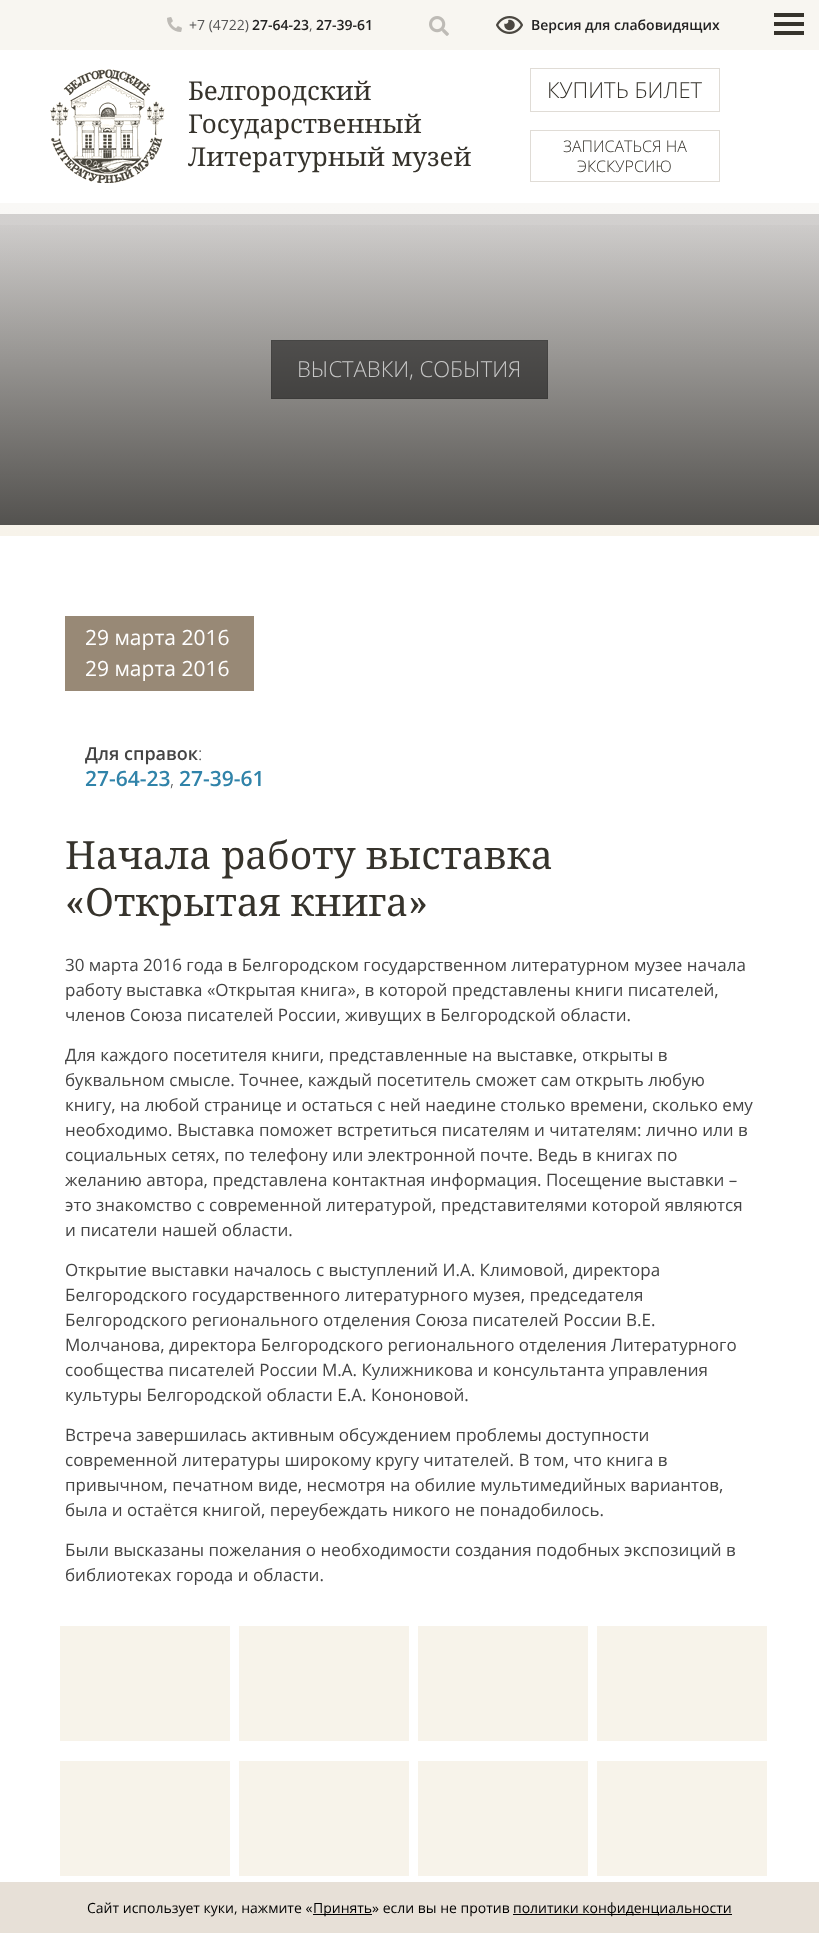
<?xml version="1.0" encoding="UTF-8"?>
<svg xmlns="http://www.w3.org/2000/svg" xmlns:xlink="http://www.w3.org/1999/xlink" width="819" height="1933">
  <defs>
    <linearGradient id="g1" gradientUnits="userSpaceOnUse" x1="410" y1="536" x2="410" y2="203"><stop offset="0" stop-color="#f7f3ea" /><stop offset="1" stop-color="#f9f8f6" /></linearGradient>
    <linearGradient id="g2" gradientUnits="userSpaceOnUse" x1="410" y1="536" x2="410" y2="203"><stop offset="0" stop-color="#d0ccc5" /><stop offset="1" stop-color="#d2d0cf" /></linearGradient>
    <linearGradient id="g3" gradientUnits="userSpaceOnUse" x1="410" y1="525" x2="410" y2="214"><stop offset="0" stop-color="#000000" stop-opacity="0.6" /><stop offset="1" stop-color="#000000" stop-opacity="0" /></linearGradient>
  </defs>
  <rect width="100%" height="100%" fill="#ffffff" />
  <rect width="819" height="50" fill="#f8f6f1" />
  <image x="167" y="17" width="15" height="15" xlink:href="image1.png" />
  <image x="429" y="16" width="20" height="20" xlink:href="image2.png" />
  <image x="496" y="16" width="27" height="18" xlink:href="image3.png" />
  <image x="50" y="69" width="115" height="114" xlink:href="image4.png" />
  <rect x="774" y="22" width="30" height="4" fill="#36332c" />
  <rect x="774" y="13" width="30" height="4" fill="#36332c" />
  <rect x="774" y="31" width="30" height="4" fill="#36332c" />
  <rect x="530.5" y="68.5" width="189" height="43" fill="none" stroke="#e0dcd6" />
  <rect x="530.5" y="130.5" width="189" height="51" fill="none" stroke="#e0dcd6" />
  <rect y="203" width="819" height="333" fill="url(#g1)" />
  <rect y="214" width="819" height="311" fill="url(#g2)" />
  <rect y="225" width="819" height="300" fill="url(#g3)" />
  <rect x="271" y="340" width="277" height="59" fill="#000000" fill-opacity="0.5" />
  <rect x="271.5" y="340.5" width="276" height="58" fill="none" stroke="#000000" stroke-opacity="0.1" />
  <rect x="65" y="616" width="189" height="75" fill="#988976" />
  <rect x="60" y="1626" width="170" height="115" fill="#f7f3ea" />
  <rect x="239" y="1626" width="170" height="115" fill="#f7f3ea" />
  <rect x="418" y="1626" width="170" height="115" fill="#f7f3ea" />
  <rect x="597" y="1626" width="170" height="115" fill="#f7f3ea" />
  <rect x="60" y="1761" width="170" height="115" fill="#f7f3ea" />
  <rect x="239" y="1761" width="170" height="115" fill="#f7f3ea" />
  <rect x="418" y="1761" width="170" height="115" fill="#f7f3ea" />
  <rect x="597" y="1761" width="170" height="115" fill="#f7f3ea" />
  <rect y="1882" width="819" height="51" fill="#e7e0d7" />
  <rect x="313" y="1914" width="59" height="1" fill="#000000" />
  <rect x="513" y="1914" width="219" height="1" fill="#000000" />
  <text x="189" y="30" style="font-family: Open Sans; font-size: 14px; fill: #555555">+7 (4722)</text>
  <text x="252" y="30" style="font-family: Open Sans; font-size: 14px; font-weight: 600; fill: #222222">27-64-23</text>
  <text x="309" y="30" style="font-family: Open Sans; font-size: 14px; fill: #555555">,</text>
  <text x="316" y="30" style="font-family: Open Sans; font-size: 14px; font-weight: 600; fill: #222222">27-39-61</text>
  <text x="531" y="30" style="font-family: Open Sans; font-size: 14px; font-weight: 600; fill: #222222">Версия для слабовидящих</text>
  <text x="188" y="100" style="font-family: Noto Serif; font-size: 26px; fill: #36332c">Белгородский</text>
  <text x="188" y="133" style="font-family: Noto Serif; font-size: 26px; fill: #36332c">Государственный</text>
  <text x="188" y="166" style="font-family: Noto Serif; font-size: 26px; fill: #36332c">Литературный музей</text>
  <text x="547" y="98" style="font-family: Open Sans; font-size: 22px; font-weight: 300; fill: #36332c">КУПИТЬ БИЛЕТ</text>
  <text x="563" y="152" style="font-family: Open Sans; font-size: 16px; font-weight: 300; fill: #36332c">ЗАПИСАТЬСЯ НА</text>
  <text x="577" y="172" style="font-family: Open Sans; font-size: 16px; font-weight: 300; fill: #36332c">ЭКСКУРСИЮ</text>
  <text x="297" y="377" style="font-family: Open Sans; font-size: 22px; font-weight: 300; fill: #c8c8c8">ВЫСТАВКИ, СОБЫТИЯ</text>
  <text x="85" y="645" style="font-family: Open Sans; font-size: 21px; fill: #ffffff">29 марта 2016</text>
  <text x="85" y="676" style="font-family: Open Sans; font-size: 21px; fill: #ffffff">29 марта 2016</text>
  <text x="85" y="760" style="font-family: Open Sans; font-size: 18px; font-weight: 600; fill: #444444">Для справок</text>
  <text x="198" y="760" style="font-family: Open Sans; font-size: 18px; font-weight: 300; fill: #444444">:</text>
  <text x="85" y="786" style="font-family: Open Sans; font-size: 21px; font-weight: 600; fill: #3083a9">27-64-23</text>
  <text x="170" y="786" style="font-family: Open Sans; font-size: 18px; font-weight: 300; fill: #444444">,</text>
  <text x="179" y="786" style="font-family: Open Sans; font-size: 21px; font-weight: 600; fill: #3083a9">27-39-61</text>
  <text x="65" y="869" style="font-family: Noto Serif; font-size: 39px; fill: #36332c">Начала работу выставка</text>
  <text x="65" y="916" style="font-family: Noto Serif; font-size: 39px; fill: #36332c">«Открытая книга»</text>
  <text x="65" y="971" style="font-family: Open Sans; font-size: 17px; fill: #444444">30 марта 2016 года в Белгородском государственном литературном музее начала</text>
  <text x="65" y="996" style="font-family: Open Sans; font-size: 17px; fill: #444444">работу выставка «Открытая книга», в которой представлены книги писателей,</text>
  <text x="65" y="1021" style="font-family: Open Sans; font-size: 17px; fill: #444444">членов Союза писателей России, живущих в Белгородской области.</text>
  <text x="65" y="1061" style="font-family: Open Sans; font-size: 17px; fill: #444444">Для каждого посетителя книги, представленные на выставке, открыты в</text>
  <text x="65" y="1086" style="font-family: Open Sans; font-size: 17px; fill: #444444">буквальном смысле. Точнее, каждый посетитель сможет сам открыть любую</text>
  <text x="65" y="1111" style="font-family: Open Sans; font-size: 17px; fill: #444444">книгу, на любой странице и остаться с ней наедине столько времени, сколько ему</text>
  <text x="65" y="1136" style="font-family: Open Sans; font-size: 17px; fill: #444444">необходимо. Выставка поможет встретиться писателям и читателям: лично или в</text>
  <text x="65" y="1161" style="font-family: Open Sans; font-size: 17px; fill: #444444">социальных сетях, по телефону или электронной почте. Ведь в книгах по</text>
  <text x="65" y="1186" style="font-family: Open Sans; font-size: 17px; fill: #444444">желанию автора, представлена контактная информация. Посещение выставки –</text>
  <text x="65" y="1211" style="font-family: Open Sans; font-size: 17px; fill: #444444">это знакомство с современной литературой, представителями которой являются</text>
  <text x="65" y="1236" style="font-family: Open Sans; font-size: 17px; fill: #444444">и писатели нашей области.</text>
  <text x="65" y="1276" style="font-family: Open Sans; font-size: 17px; fill: #444444">Открытие выставки началось с выступлений И.А. Климовой, директора</text>
  <text x="65" y="1301" style="font-family: Open Sans; font-size: 17px; fill: #444444">Белгородского государственного литературного музея, председателя</text>
  <text x="65" y="1326" style="font-family: Open Sans; font-size: 17px; fill: #444444">Белгородского регионального отделения Союза писателей России В.Е.</text>
  <text x="65" y="1351" style="font-family: Open Sans; font-size: 17px; fill: #444444">Молчанова, директора Белгородского регионального отделения Литературного</text>
  <text x="65" y="1376" style="font-family: Open Sans; font-size: 17px; fill: #444444">сообщества писателей России М.А. Кулижникова и консультанта управления</text>
  <text x="65" y="1401" style="font-family: Open Sans; font-size: 17px; fill: #444444">культуры Белгородской области Е.А. Кононовой.</text>
  <text x="65" y="1441" style="font-family: Open Sans; font-size: 17px; fill: #444444">Встреча завершилась активным обсуждением проблемы доступности</text>
  <text x="65" y="1466" style="font-family: Open Sans; font-size: 17px; fill: #444444">современной литературы широкому кругу читателей. В том, что книга в</text>
  <text x="65" y="1491" style="font-family: Open Sans; font-size: 17px; fill: #444444">привычном, печатном виде, несмотря на обилие мультимедийных вариантов,</text>
  <text x="65" y="1516" style="font-family: Open Sans; font-size: 17px; fill: #444444">была и остаётся книгой, переубеждать никого не понадобилось.</text>
  <text x="65" y="1556" style="font-family: Open Sans; font-size: 17px; fill: #444444">Были высказаны пожелания о необходимости создания подобных экспозиций в</text>
  <text x="65" y="1581" style="font-family: Open Sans; font-size: 17px; fill: #444444">библиотеках города и области.</text>
  <text x="87" y="1913" style="font-family: Open Sans; font-size: 14px; fill: #000000">Сайт использует куки, нажмите «</text>
  <text x="313" y="1913" style="font-family: Open Sans; font-size: 14px; fill: #000000">Принять» если вы не против</text>
  <text x="513" y="1913" style="font-family: Open Sans; font-size: 14px; fill: #000000">политики конфиденциальности</text>
</svg>
